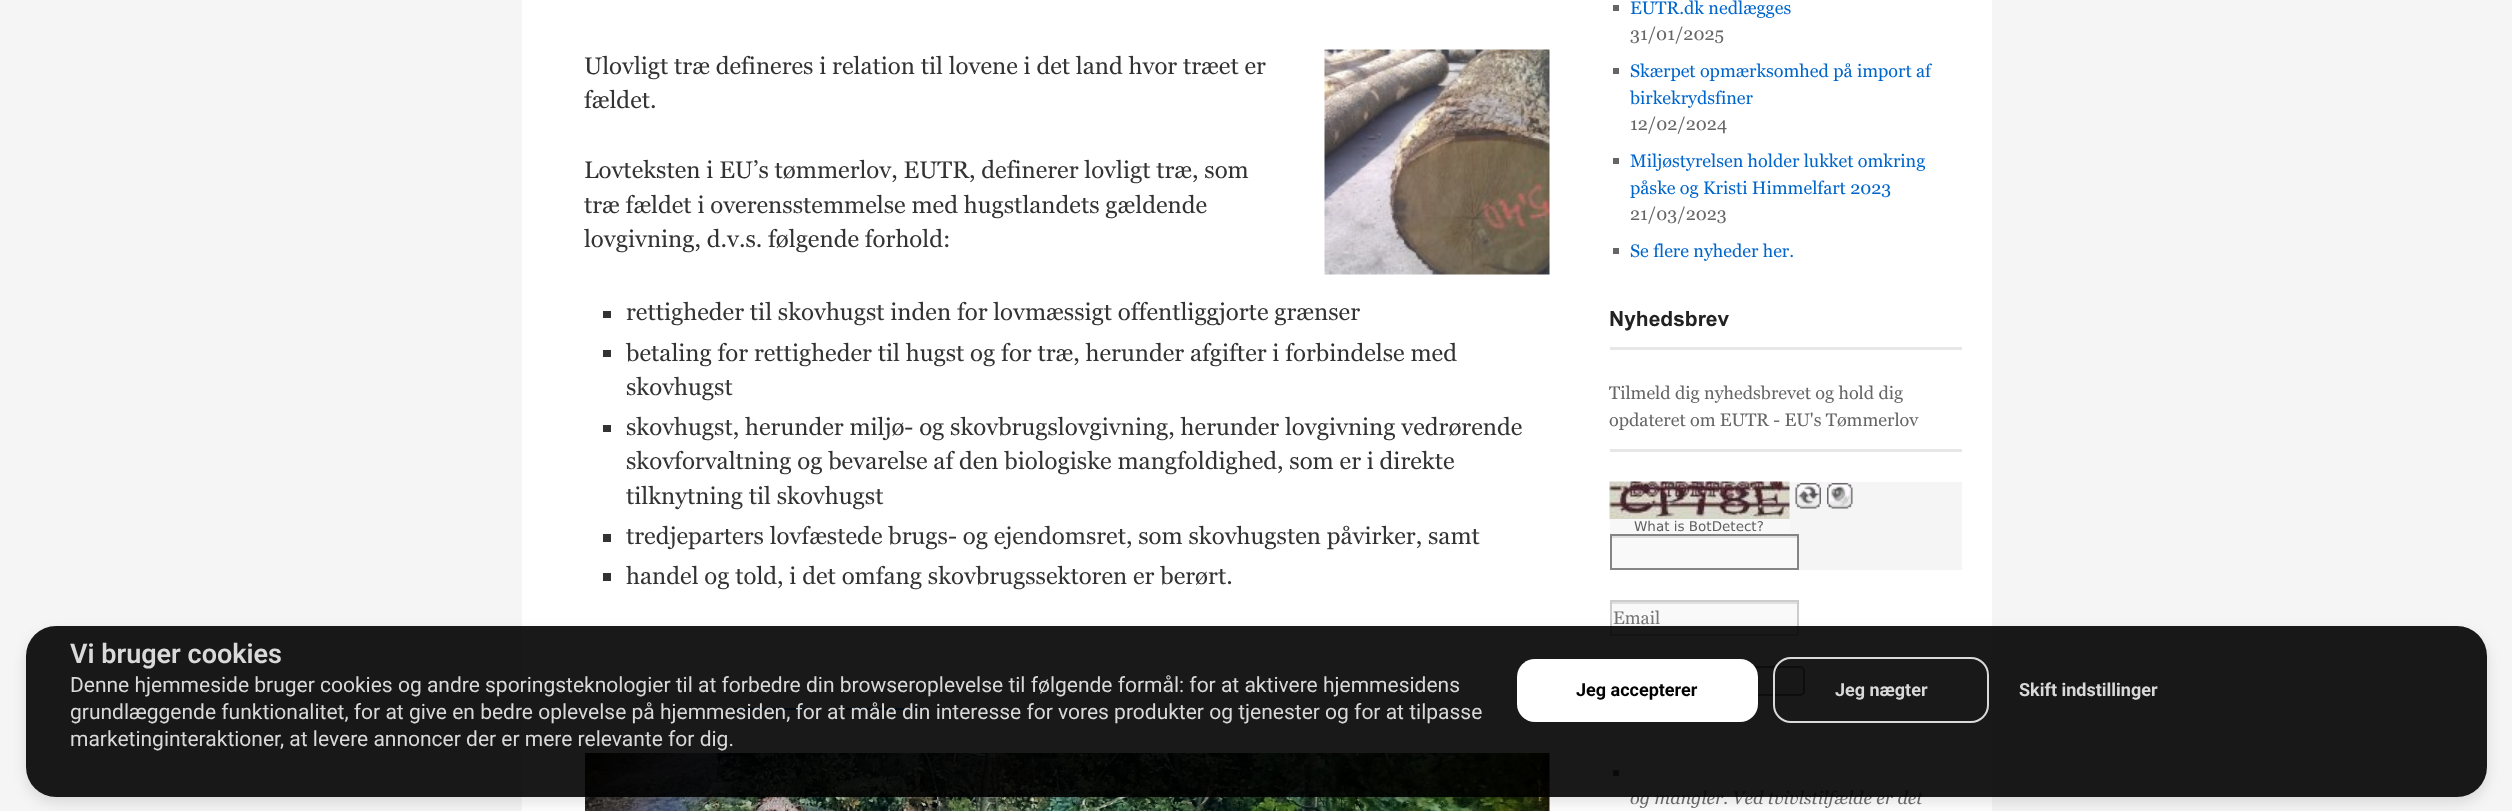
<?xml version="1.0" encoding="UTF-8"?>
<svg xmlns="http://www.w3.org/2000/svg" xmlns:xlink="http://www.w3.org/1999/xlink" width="2512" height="811">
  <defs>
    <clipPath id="clip1"><path d="M 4 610 h 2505 v 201 h -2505 z m 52 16 h 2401 c 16.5 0 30 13.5 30 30 v 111 c 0 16.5 -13.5 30 -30 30 h -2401 c -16.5 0 -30 -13.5 -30 -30 v -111 c 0 -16.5 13.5 -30 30 -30 z" clip-rule="evenodd" /></clipPath>
  </defs>
  <rect width="100%" height="100%" fill="#f5f5f5" />
  <rect x="522" width="1470" height="811" fill="#ffffff" />
  <image x="1324" y="49" width="226" height="226" xlink:href="image1.png" />
  <rect x="603" y="311" width="8" height="7" fill="#333333" />
  <rect x="603" y="350" width="8" height="7" fill="#333333" />
  <rect x="603" y="425" width="8" height="7" fill="#333333" />
  <rect x="603" y="534" width="8" height="8" fill="#333333" />
  <rect x="603" y="573" width="8" height="8" fill="#333333" />
  <rect x="732" y="708" width="77" height="2" fill="#0066cc" />
  <rect x="846" y="708" width="75" height="2" fill="#0066cc" />
  <image x="585" y="753" width="965" height="58" xlink:href="image2.png" />
  <rect x="1613" y="5" width="6" height="6" fill="#666666" />
  <rect x="1613" y="68" width="6" height="6" fill="#666666" />
  <rect x="1613" y="158" width="6" height="6" fill="#666666" />
  <rect x="1613" y="248" width="6" height="6" fill="#666666" />
  <rect x="1610" y="347" width="352" height="3" fill="#e7e7e7" />
  <rect x="1610" y="449" width="352" height="3" fill="#e7e7e7" />
  <rect x="1789" y="482" width="173" height="88" fill="#f5f5f5" />
  <image x="1795" y="483" width="26" height="26" xlink:href="image3.png" />
  <image x="1827" y="483" width="26" height="26" xlink:href="image4.png" />
  <rect x="1610" y="519" width="180" height="15" fill="#f8f8f8" />
  <image x="1609" y="481" width="181" height="39" xlink:href="image5.png" />
  <rect x="1612" y="538" width="185" height="30" fill="#f9f9f9" />
  <rect x="1611" y="536" width="186" height="2" fill="#e0e0e0" />
  <rect x="1611" y="535" width="187" height="34" fill="none" stroke="#858585" stroke-width="2" />
  <rect x="1612" y="604" width="185" height="30" fill="#f9f9f9" />
  <rect x="1611" y="602" width="186" height="2" fill="#e0e0e0" />
  <rect x="1611" y="601" width="187" height="34" fill="none" stroke="#cccccc" stroke-width="2" />
  <rect x="1611" y="667" width="193" height="28" rx="4" fill="#efefef" stroke="#858585" stroke-width="2" />
  <rect x="1613" y="770" width="6" height="6" fill="#666666" />
  <g clip-path="url(#clip1)">
    <rect x="26" y="632" width="2461" height="171" rx="30" fill="#000000" fill-opacity="0.11" filter="blur(7px)" />
  </g>
  <text x="584" y="74" style="font-family: Georgia; font-size: 24px; fill: #333333">Ulovligt træ defineres i relation til lovene i det land hvor træet er</text>
  <text x="584" y="108" style="font-family: Georgia; font-size: 24px; fill: #333333">fældet.</text>
  <text x="584" y="178" style="font-family: Georgia; font-size: 24px; fill: #333333">Lovteksten i EU’s tømmerlov, EUTR, definerer lovligt træ, som</text>
  <text x="584" y="213" style="font-family: Georgia; font-size: 24px; fill: #333333">træ fældet i overensstemmelse med hugstlandets gældende</text>
  <text x="584" y="247" style="font-family: Georgia; font-size: 24px; fill: #333333">lovgivning, d.v.s. følgende forhold:</text>
  <text x="626" y="320" style="font-family: Georgia; font-size: 24px; fill: #333333">rettigheder til skovhugst inden for lovmæssigt offentliggjorte grænser</text>
  <text x="626" y="361" style="font-family: Georgia; font-size: 24px; fill: #333333">betaling for rettigheder til hugst og for træ, herunder afgifter i forbindelse med</text>
  <text x="626" y="395" style="font-family: Georgia; font-size: 24px; fill: #333333">skovhugst</text>
  <text x="626" y="435" style="font-family: Georgia; font-size: 24px; fill: #333333">skovhugst, herunder miljø- og skovbrugslovgivning, herunder lovgivning vedrørende</text>
  <text x="626" y="469" style="font-family: Georgia; font-size: 24px; fill: #333333">skovforvaltning og bevarelse af den biologiske mangfoldighed, som er i direkte</text>
  <text x="626" y="504" style="font-family: Georgia; font-size: 24px; fill: #333333">tilknytning til skovhugst</text>
  <text x="626" y="544" style="font-family: Georgia; font-size: 24px; fill: #333333">tredjeparters lovfæstede brugs- og ejendomsret, som skovhugsten påvirker, samt</text>
  <text x="626" y="584" style="font-family: Georgia; font-size: 24px; fill: #333333">handel og told, i det omfang skovbrugssektoren er berørt.</text>
  <text x="1630" y="14" style="font-family: Georgia; font-size: 18px; fill: #0066cc">EUTR.dk nedlægges</text>
  <text x="1630" y="40" style="font-family: Georgia; font-size: 18px; fill: #666666">31/01/2025</text>
  <text x="1630" y="77" style="font-family: Georgia; font-size: 18px; fill: #0066cc">Skærpet opmærksomhed på import af</text>
  <text x="1630" y="104" style="font-family: Georgia; font-size: 18px; fill: #0066cc">birkekrydsfiner</text>
  <text x="1630" y="130" style="font-family: Georgia; font-size: 18px; fill: #666666">12/02/2024</text>
  <text x="1630" y="167" style="font-family: Georgia; font-size: 18px; fill: #0066cc">Miljøstyrelsen holder lukket omkring</text>
  <text x="1630" y="194" style="font-family: Georgia; font-size: 18px; fill: #0066cc">påske og Kristi Himmelfart 2023</text>
  <text x="1630" y="220" style="font-family: Georgia; font-size: 18px; fill: #666666">21/03/2023</text>
  <text x="1630" y="257" style="font-family: Georgia; font-size: 18px; fill: #0066cc">Se flere nyheder her.</text>
  <text x="1609" y="326" style="font-family: Arial; font-size: 21px; font-weight: bold; fill: #222222">Nyhedsbrev</text>
  <text x="1609" y="399" style="font-family: Georgia; font-size: 18px; fill: #666666">Tilmeld dig nyhedsbrevet og hold dig</text>
  <text x="1609" y="426" style="font-family: Georgia; font-size: 18px; fill: #666666">opdateret om EUTR - EU's Tømmerlov</text>
  <text x="1634" y="531" style="font-family: DejaVu Sans; font-size: 13.5px; fill: #606060">What is BotDetect?</text>
  <text x="1613" y="624" style="font-family: Georgia; font-size: 18px; fill: #757575">Email</text>
  <text x="1630" y="804" style="font-family: Georgia; font-size: 18px; font-style: italic; fill: #666666">og mangler. Ved tvivlstilfælde er det</text>
  <rect x="26" y="626" width="2461" height="171" rx="30" fill="#000000" fill-opacity="0.9" />
  <text x="70" y="663" style="font-family: Roboto; font-size: 27px; font-weight: 600; fill: #d9d9d9">Vi bruger cookies</text>
  <text x="70" y="692" style="font-family: Roboto; font-size: 21px; fill: #d9d9d9">Denne hjemmeside bruger cookies og andre sporingsteknologier til at forbedre din browseroplevelse til følgende formål: for at aktivere hjemmesidens</text>
  <text x="70" y="719" style="font-family: Roboto; font-size: 21px; fill: #d9d9d9">grundlæggende funktionalitet, for at give en bedre oplevelse på hjemmesiden, for at måle din interesse for vores produkter og tjenester og for at tilpasse</text>
  <text x="70" y="746" style="font-family: Roboto; font-size: 21px; fill: #d9d9d9">marketinginteraktioner</text>
  <text x="280" y="746" style="font-family: Roboto; font-size: 21px; fill: #d9d9d9">, at levere annoncer der er mere relevante for dig.</text>
  <rect x="1517" y="659" width="241" height="63" rx="18" fill="#ffffff" />
  <text x="1576" y="696" style="font-family: Roboto; font-size: 18px; font-weight: bold; fill: #000000">Jeg accepterer</text>
  <rect x="1774" y="658" width="214" height="64" rx="17" fill="none" stroke="#d9d9d9" stroke-width="2" />
  <text x="1835" y="696" style="font-family: Roboto; font-size: 18px; font-weight: bold; fill: #d9d9d9">Jeg nægter</text>
  <text x="2019" y="696" style="font-family: Roboto; font-size: 18px; font-weight: bold; fill: #d9d9d9">Skift indstillinger</text>
</svg>
